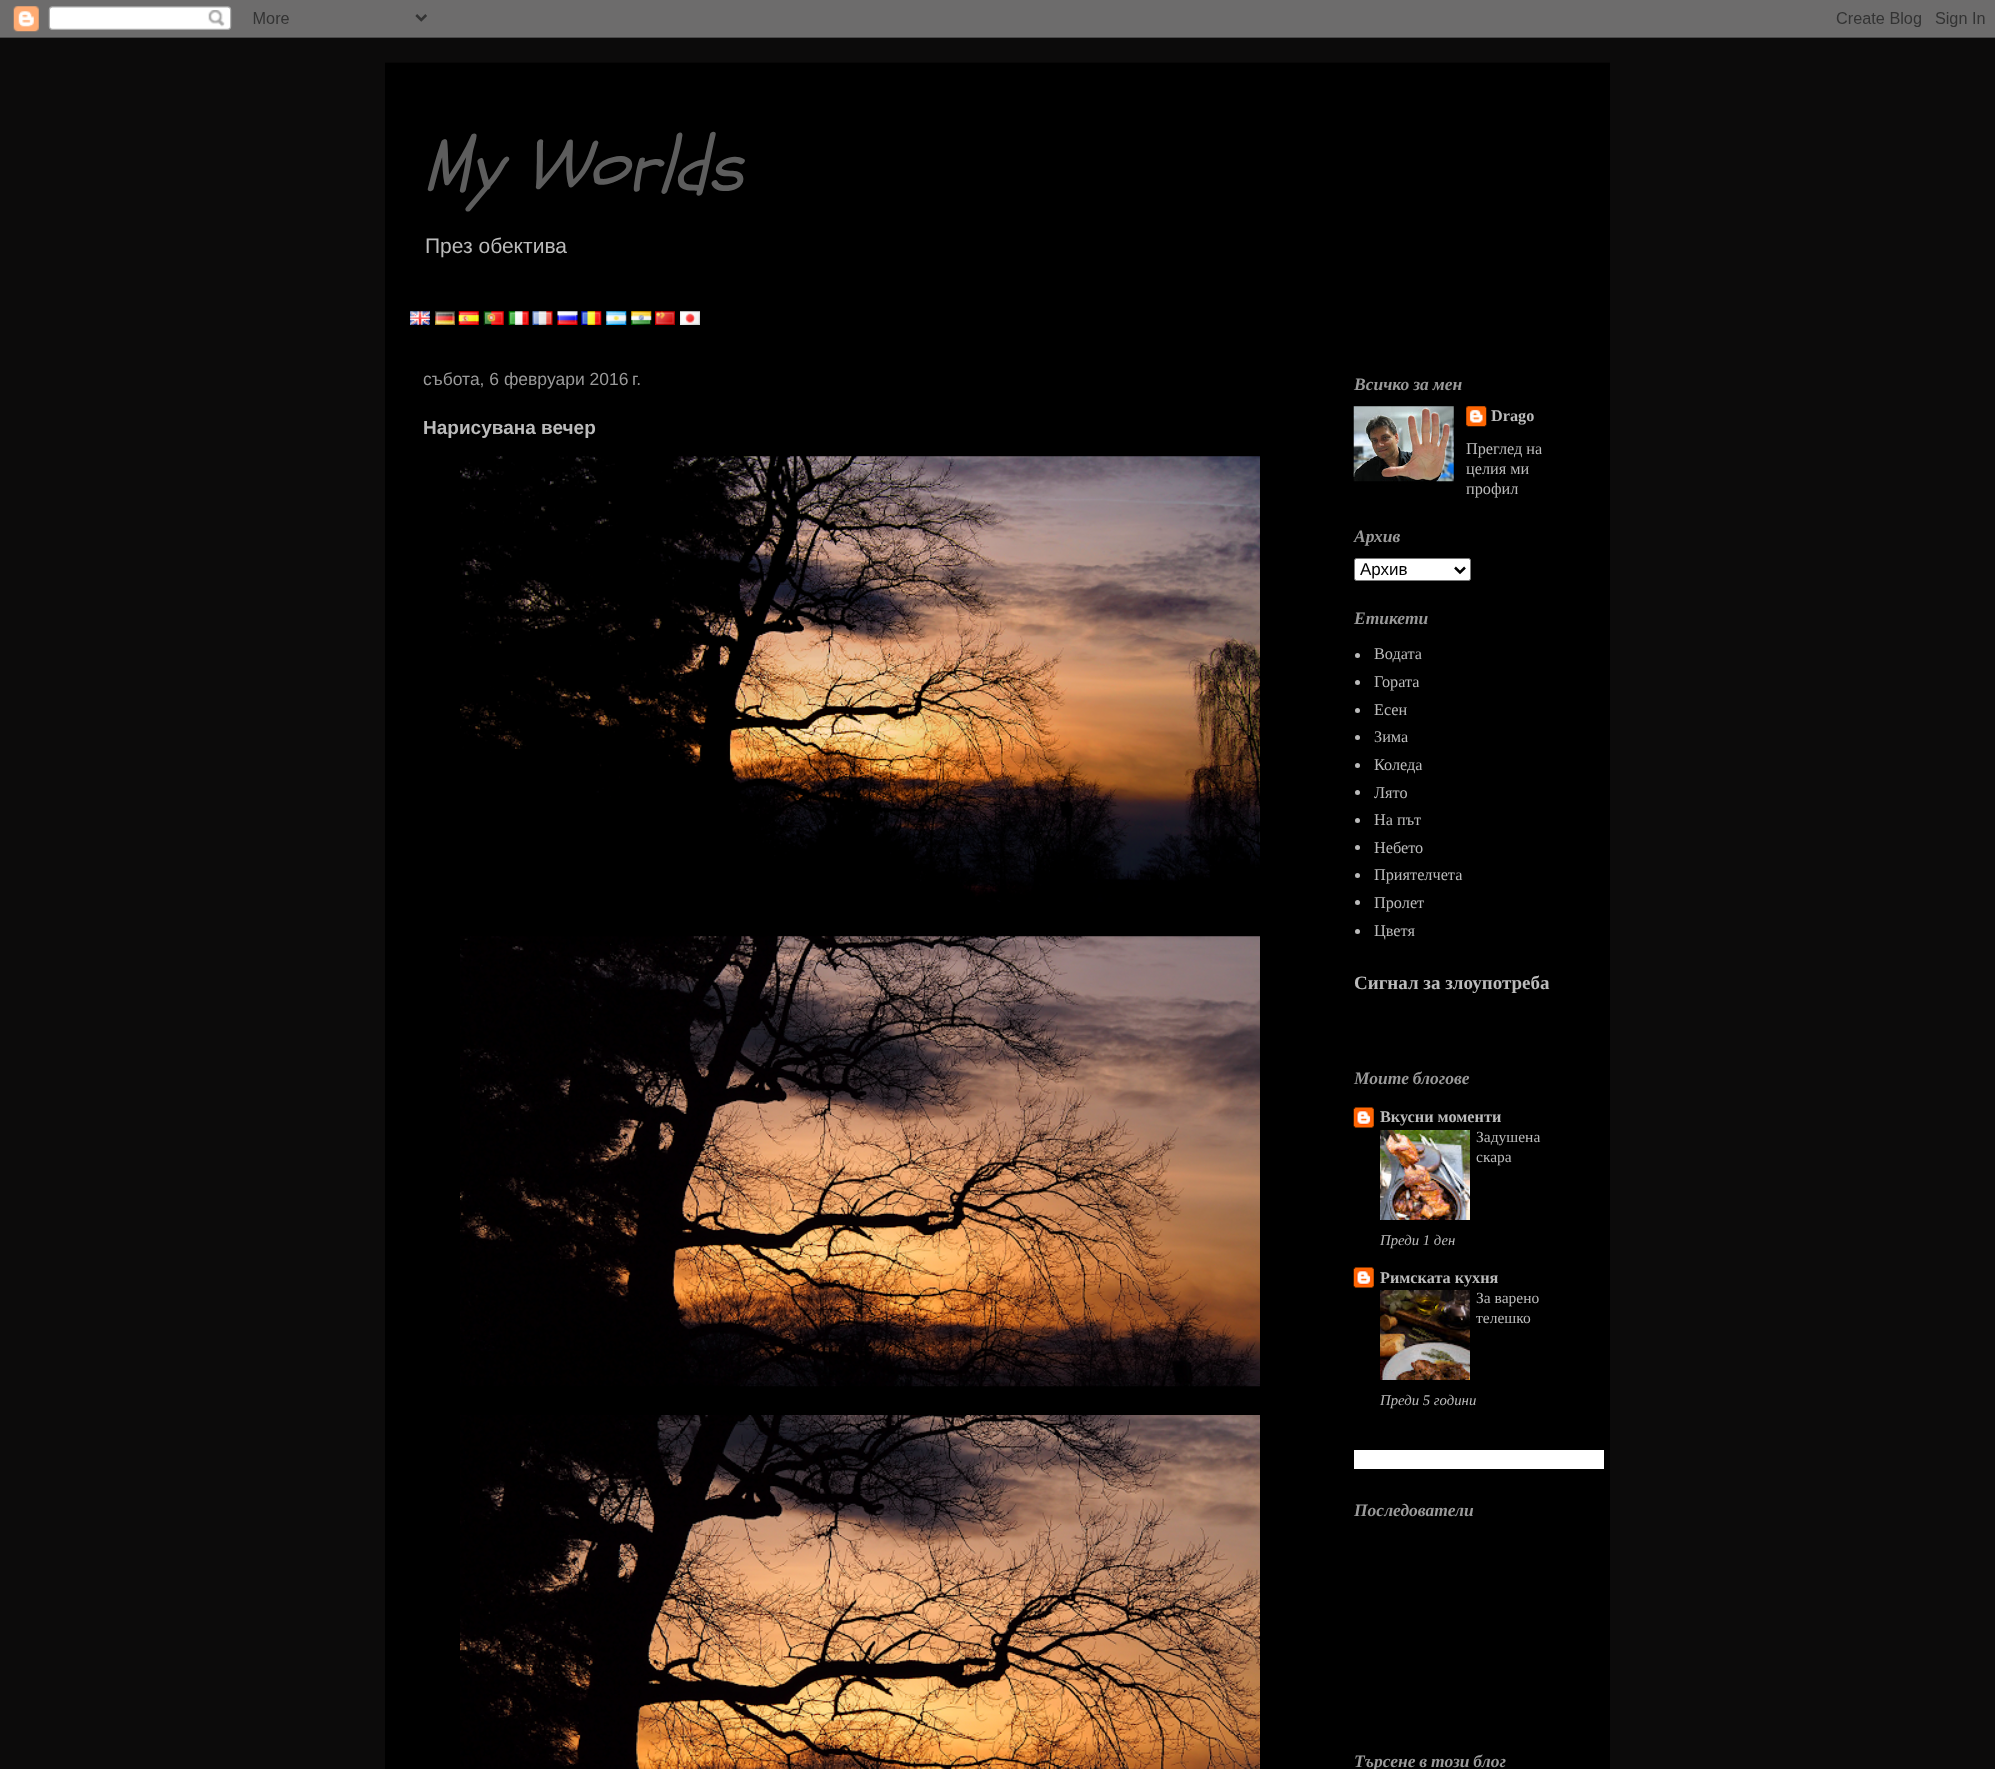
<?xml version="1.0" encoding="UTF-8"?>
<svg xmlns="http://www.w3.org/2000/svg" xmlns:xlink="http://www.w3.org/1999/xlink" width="1995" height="1769">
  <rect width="100%" height="100%" fill="#0c0b0b" />
  <image x="0" y="0" width="1995" height="38" xlink:href="image1.png" />
  <rect x="385" y="63" width="1225" height="1706" fill="#000000" />
  <rect x="385" y="62" width="1225" height="1" fill="#080707" />
  <image x="410" y="311" width="20" height="14" xlink:href="image2.png" />
  <image x="435" y="311" width="20" height="14" xlink:href="image3.png" />
  <image x="458" y="311" width="21" height="14" xlink:href="image4.png" />
  <image x="483" y="311" width="21" height="14" xlink:href="image5.png" />
  <image x="508" y="311" width="21" height="14" xlink:href="image6.png" />
  <image x="532" y="311" width="21" height="14" xlink:href="image7.png" />
  <image x="557" y="311" width="21" height="14" xlink:href="image8.png" />
  <image x="581" y="311" width="21" height="14" xlink:href="image9.png" />
  <image x="606" y="311" width="21" height="14" xlink:href="image10.png" />
  <image x="631" y="311" width="21" height="14" xlink:href="image11.png" />
  <image x="655" y="311" width="20" height="14" xlink:href="image12.png" />
  <image x="680" y="311" width="20" height="14" xlink:href="image13.png" />
  <image x="460" y="456" width="800" height="446" xlink:href="image14.png" />
  <image x="460" y="936" width="800" height="451" xlink:href="image15.png" />
  <image x="460" y="1415" width="800" height="354" xlink:href="image16.png" />
  <image x="1353" y="406" width="101" height="76" xlink:href="image17.png" />
  <image x="1466" y="406" width="21" height="21" xlink:href="image18.png" />
  <rect x="1354.5" y="558.5" width="116" height="22" rx="2" fill="#ffffff" stroke="#767676" />
  <path d="M 1455 567.5 l 5 5 l 5 -5" fill="none" stroke="#000000" stroke-width="2.5" />
  <circle cx="1357.5" cy="655.5" r="2.5" fill="#bbbbbb" />
  <circle cx="1357.5" cy="682.5" r="2.5" fill="#bbbbbb" />
  <circle cx="1357.5" cy="710.5" r="2.5" fill="#bbbbbb" />
  <circle cx="1357.5" cy="737.5" r="2.5" fill="#bbbbbb" />
  <circle cx="1357.5" cy="765.5" r="2.5" fill="#bbbbbb" />
  <circle cx="1357.5" cy="792.5" r="2.5" fill="#bbbbbb" />
  <circle cx="1357.5" cy="820.5" r="2.5" fill="#bbbbbb" />
  <circle cx="1357.5" cy="847.5" r="2.5" fill="#bbbbbb" />
  <circle cx="1357.5" cy="875.5" r="2.5" fill="#bbbbbb" />
  <circle cx="1357.5" cy="902.5" r="2.5" fill="#bbbbbb" />
  <circle cx="1357.5" cy="931.5" r="2.5" fill="#bbbbbb" />
  <image x="1353" y="1107" width="21" height="21" xlink:href="image19.png" />
  <image x="1380" y="1130" width="90" height="90" xlink:href="image20.png" />
  <image x="1353" y="1267" width="21" height="21" xlink:href="image19.png" />
  <image x="1380" y="1290" width="90" height="90" xlink:href="image21.png" />
  <rect x="1354" y="1450" width="250" height="19" fill="#ffffff" />
  <text x="423" y="190" style="font-family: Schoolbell; font-size: 75px; font-style: italic; fill: #5d5d5d">My Worlds</text>
  <text x="425" y="253" style="font-family: Liberation Sans; font-size: 21px; fill: #bbbbbb">През обектива</text>
  <text x="423" y="385" style="font-family: Liberation Sans; font-size: 17.5px; fill: #999999">събота, 6 февруари 2016 г.</text>
  <text x="423" y="434" style="font-family: Liberation Sans; font-size: 19px; font-weight: bold; fill: #bbbbbb">Нарисувана вечер</text>
  <text x="1354" y="390" word-spacing="-0.5" style="font-family: Liberation Serif; font-size: 17.5px; font-weight: bold; font-style: italic; fill: #999999">Всичко за мен</text>
  <text x="1491" y="421" style="font-family: Liberation Serif; font-size: 16.25px; font-weight: bold; fill: #bbbbbb">Drago</text>
  <text x="1466" y="454" style="font-family: Liberation Serif; font-size: 16.25px; fill: #bbbbbb">Преглед на</text>
  <text x="1466" y="474" style="font-family: Liberation Serif; font-size: 16.25px; fill: #bbbbbb">целия ми</text>
  <text x="1466" y="494" style="font-family: Liberation Serif; font-size: 16.25px; fill: #bbbbbb">профил</text>
  <text x="1354" y="542" style="font-family: Liberation Serif; font-size: 17.5px; font-weight: bold; font-style: italic; fill: #999999">Архив</text>
  <text x="1360" y="575" style="font-family: Liberation Sans; font-size: 17px; fill: #000000">Архив</text>
  <text x="1354" y="624" style="font-family: Liberation Serif; font-size: 17.5px; font-weight: bold; font-style: italic; fill: #999999">Етикети</text>
  <text x="1374" y="659" style="font-family: Liberation Serif; font-size: 16.25px; fill: #bbbbbb">Водата</text>
  <text x="1374" y="687" style="font-family: Liberation Serif; font-size: 16.25px; fill: #bbbbbb">Гората</text>
  <text x="1374" y="715" style="font-family: Liberation Serif; font-size: 16.25px; fill: #bbbbbb">Есен</text>
  <text x="1374" y="742" style="font-family: Liberation Serif; font-size: 16.25px; fill: #bbbbbb">Зима</text>
  <text x="1374" y="770" style="font-family: Liberation Serif; font-size: 16.25px; fill: #bbbbbb">Коледа</text>
  <text x="1374" y="798" style="font-family: Liberation Serif; font-size: 16.25px; fill: #bbbbbb">Лято</text>
  <text x="1374" y="825" style="font-family: Liberation Serif; font-size: 16.25px; fill: #bbbbbb">На път</text>
  <text x="1374" y="853" style="font-family: Liberation Serif; font-size: 16.25px; fill: #bbbbbb">Небето</text>
  <text x="1374" y="880" style="font-family: Liberation Serif; font-size: 16.25px; fill: #bbbbbb">Приятелчета</text>
  <text x="1374" y="908" style="font-family: Liberation Serif; font-size: 16.25px; fill: #bbbbbb">Пролет</text>
  <text x="1374" y="936" style="font-family: Liberation Serif; font-size: 16.25px; fill: #bbbbbb">Цветя</text>
  <text x="1354" y="989" style="font-family: Liberation Serif; font-size: 19px; font-weight: bold; fill: #bbbbbb">Сигнал за злоупотреба</text>
  <text x="1354" y="1084" word-spacing="-0.5" style="font-family: Liberation Serif; font-size: 17.5px; font-weight: bold; font-style: italic; fill: #999999">Моите блогове</text>
  <text x="1380" y="1122" style="font-family: Liberation Serif; font-size: 16.25px; font-weight: bold; fill: #bbbbbb">Вкусни моменти</text>
  <text x="1476" y="1142" style="font-family: Liberation Serif; font-size: 15.5px; fill: #bbbbbb">Задушена</text>
  <text x="1476" y="1162" style="font-family: Liberation Serif; font-size: 15.5px; fill: #bbbbbb">скара</text>
  <text x="1380" y="1245" style="font-family: Liberation Serif; font-size: 14.75px; font-style: italic; fill: #bbbbbb">Преди 1 ден</text>
  <text x="1380" y="1283" style="font-family: Liberation Serif; font-size: 16.25px; font-weight: bold; fill: #bbbbbb">Римската кухня</text>
  <text x="1476" y="1303" style="font-family: Liberation Serif; font-size: 15.5px; fill: #bbbbbb">За варено</text>
  <text x="1476" y="1323" style="font-family: Liberation Serif; font-size: 15.5px; fill: #bbbbbb">телешко</text>
  <text x="1380" y="1405" style="font-family: Liberation Serif; font-size: 14.75px; font-style: italic; fill: #bbbbbb">Преди 5 години</text>
  <text x="1354" y="1516" style="font-family: Liberation Serif; font-size: 17.5px; font-weight: bold; font-style: italic; fill: #999999">Последователи</text>
  <text x="1354" y="1767" word-spacing="-0.5" style="font-family: Liberation Serif; font-size: 17.5px; font-weight: bold; font-style: italic; fill: #999999">Търсене в този блог</text>
</svg>
